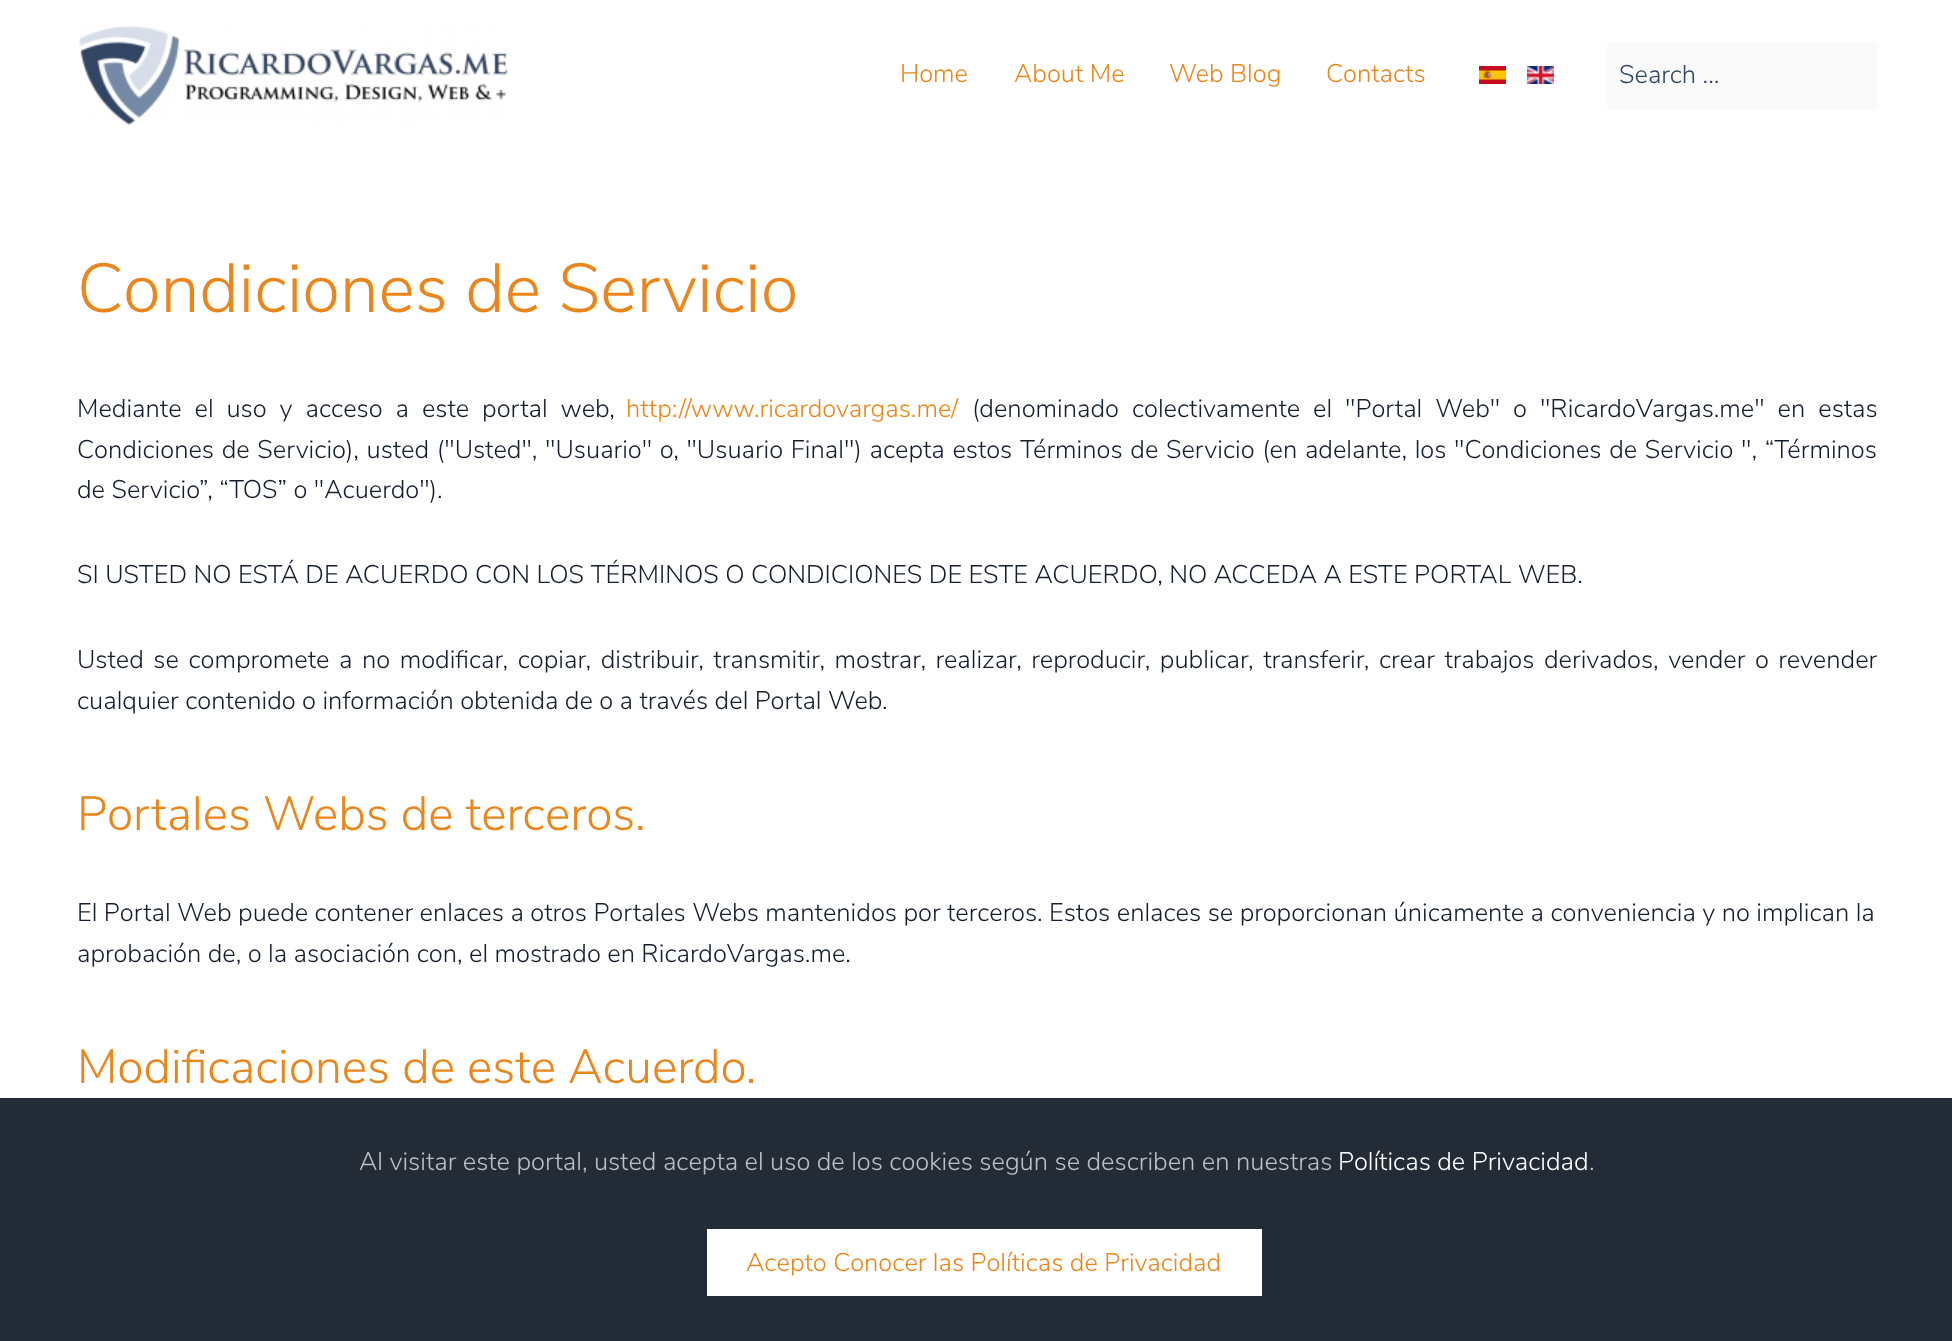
<?xml version="1.0" encoding="UTF-8"?>
<svg xmlns="http://www.w3.org/2000/svg" xmlns:xlink="http://www.w3.org/1999/xlink" width="1952" height="1341">
  <rect width="100%" height="100%" fill="#ffffff" />
  <image x="79" y="25" width="429" height="100" xlink:href="image1.png" />
  <image x="1479" y="66" width="27" height="18" xlink:href="image2.png" />
  <image x="1527" y="66" width="27" height="18" xlink:href="image3.png" />
  <rect x="1607" y="42" width="270" height="68" fill="#fafafa" />
  <rect y="1098" width="1952" height="243" fill="#232b37" />
  <rect x="707" y="1229" width="555" height="67" fill="#ffffff" />
  <text x="900" y="82" style="font-family: Nunito Sans; font-size: 25.5px; font-weight: 300; fill: #ea861b">Home</text>
  <text x="1014" y="82" style="font-family: Nunito Sans; font-size: 25.5px; font-weight: 300; fill: #ea861b">About Me</text>
  <text x="1169" y="82" style="font-family: Nunito Sans; font-size: 25.5px; font-weight: 300; fill: #ea861b">Web Blog</text>
  <text x="1326" y="82" style="font-family: Nunito Sans; font-size: 25.5px; font-weight: 300; fill: #ea861b">Contacts</text>
  <text x="1619" y="83" style="font-family: Nunito Sans; font-size: 25.5px; font-weight: 300; fill: #324665">Search ...</text>
  <text x="77" y="312" style="font-family: Nunito Sans; font-size: 69px; font-weight: 300; fill: #ea861b">Condiciones de Servicio</text>
  <text x="77" y="417" word-spacing="6.5" style="font-family: Nunito Sans; font-size: 25.5px; font-weight: 300; fill: #161f2d">Mediante el uso y acceso a este portal web,</text>
  <text x="626" y="417" style="font-family: Nunito Sans; font-size: 25.5px; font-weight: 300; fill: #ea861b">http://www.ricardovargas.me/</text>
  <text x="972" y="417" word-spacing="6.5" style="font-family: Nunito Sans; font-size: 25.5px; font-weight: 300; fill: #161f2d">(denominado colectivamente el "Portal Web" o "RicardoVargas.me" en estas</text>
  <text x="77" y="458" word-spacing="1.2" style="font-family: Nunito Sans; font-size: 25.5px; font-weight: 300; fill: #161f2d">Condiciones de Servicio), usted ("Usted", "Usuario" o, "Usuario Final") acepta estos Términos de Servicio (en adelante, los "Condiciones de Servicio ", “Términos</text>
  <text x="77" y="498" style="font-family: Nunito Sans; font-size: 25.5px; font-weight: 300; fill: #161f2d">de Servicio”, “TOS” o "Acuerdo").</text>
  <text x="77" y="583" style="font-family: Nunito Sans; font-size: 25.5px; font-weight: 300; fill: #161f2d">SI USTED NO ESTÁ DE ACUERDO CON LOS TÉRMINOS O CONDICIONES DE ESTE ACUERDO, NO ACCEDA A ESTE PORTAL WEB.</text>
  <text x="77" y="668" word-spacing="3.1" style="font-family: Nunito Sans; font-size: 25.5px; font-weight: 300; fill: #161f2d">Usted se compromete a no modificar, copiar, distribuir, transmitir, mostrar, realizar, reproducir, publicar, transferir, crear trabajos derivados, vender o revender</text>
  <text x="77" y="709" style="font-family: Nunito Sans; font-size: 25.5px; font-weight: 300; fill: #161f2d">cualquier contenido o información obtenida de o a través del Portal Web.</text>
  <text x="77" y="830" style="font-family: Nunito Sans; font-size: 48px; font-weight: 300; fill: #ea861b">Portales Webs de terceros.</text>
  <text x="77" y="921" style="font-family: Nunito Sans; font-size: 25.5px; font-weight: 300; fill: #161f2d">El Portal Web puede contener enlaces a otros Portales Webs mantenidos por terceros. Estos enlaces se proporcionan únicamente a conveniencia y no implican la</text>
  <text x="77" y="962" style="font-family: Nunito Sans; font-size: 25.5px; font-weight: 300; fill: #161f2d">aprobación de, o la asociación con, el mostrado en RicardoVargas.me.</text>
  <text x="77" y="1083" style="font-family: Nunito Sans; font-size: 48px; font-weight: 300; fill: #ea861b">Modificaciones de este Acuerdo.</text>
  <text x="359" y="1170" style="font-family: Nunito Sans; font-size: 25.5px; font-weight: 300; fill: #bdbfc3">Al visitar este portal, usted acepta el uso de los cookies según se describen en nuestras</text>
  <text x="1338" y="1170" style="font-family: Nunito Sans; font-size: 25.5px; font-weight: 300; fill: #ffffff">Políticas de Privacidad</text>
  <text x="1589" y="1170" style="font-family: Nunito Sans; font-size: 25.5px; font-weight: 300; fill: #bdbfc3">.</text>
  <text x="746" y="1271" style="font-family: Nunito Sans; font-size: 25.5px; font-weight: 300; fill: #ea861b">Acepto Conocer las Políticas de Privacidad</text>
</svg>
